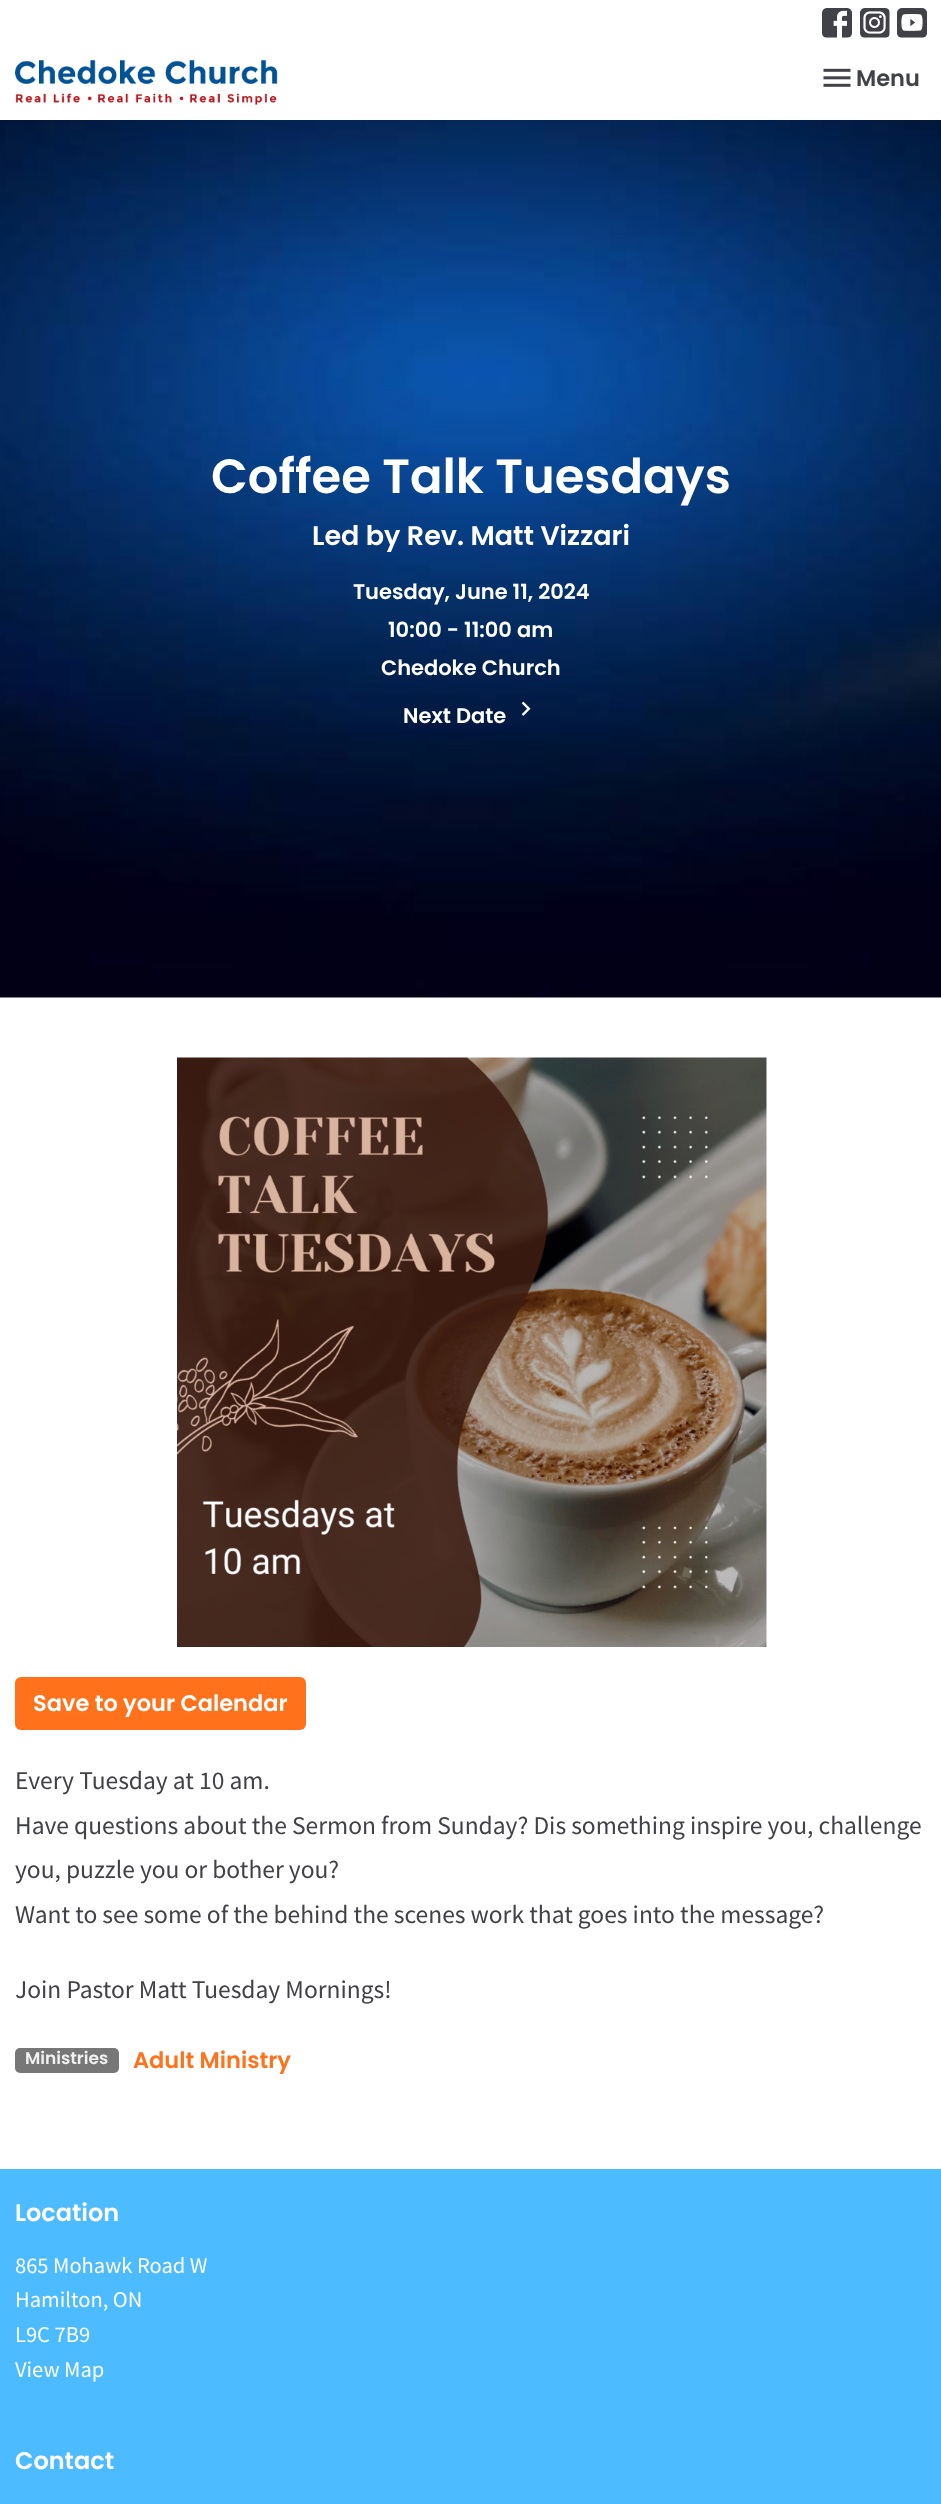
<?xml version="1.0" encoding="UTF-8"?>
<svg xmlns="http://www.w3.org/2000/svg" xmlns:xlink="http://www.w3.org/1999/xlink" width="941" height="2504">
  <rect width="100%" height="100%" fill="#ffffff" />
  <image x="822" y="8" width="30" height="30" xlink:href="image1.png" />
  <image x="860" y="8" width="30" height="30" xlink:href="image2.png" />
  <image x="897" y="8" width="30" height="30" xlink:href="image3.png" />
  <image x="15" y="60" width="263" height="45" xlink:href="image4.png" />
  <image x="823" y="68" width="28" height="19" xlink:href="image5.png" />
  <image x="0" y="120" width="941" height="878" xlink:href="image6.png" />
  <image x="521" y="701" width="10" height="15" xlink:href="image7.png" />
  <image x="177" y="1057" width="590" height="590" xlink:href="image8.png" />
  <rect x="15" y="1677" width="291" height="53" rx="6" fill="#ff721b" />
  <rect x="15" y="2048" width="104" height="25" rx="5" fill="#777777" />
  <rect y="2169" width="941" height="335" fill="#4dbbff" />
  <text x="856" y="86" style="font-family: Poppins; font-size: 22.5px; font-weight: 600; fill: #414148">Menu</text>
  <text x="211" y="493" style="font-family: Poppins; font-size: 48px; font-weight: 600; fill: #ffffff">Coffee Talk Tuesdays</text>
  <text x="312" y="545" style="font-family: Poppins; font-size: 27px; font-weight: 600; fill: #ffffff">Led by Rev. Matt Vizzari</text>
  <text x="353" y="599" style="font-family: Poppins; font-size: 21px; font-weight: 600; fill: #ffffff">Tuesday, June 11, 2024</text>
  <text x="388" y="637" style="font-family: Poppins; font-size: 21px; font-weight: 600; fill: #ffffff">10:00 - 11:00 am</text>
  <text x="381" y="675" style="font-family: Poppins; font-size: 21px; font-weight: 600; fill: #ffffff">Chedoke Church</text>
  <text x="403" y="723" style="font-family: Poppins; font-size: 21px; font-weight: 600; fill: #ffffff">Next Date</text>
  <text x="33" y="1711" style="font-family: Poppins; font-size: 22.5px; font-weight: 600; fill: #ffffff">Save to your Calendar</text>
  <text x="15" y="1789" style="font-family: Source Sans Pro; font-size: 25.5px; fill: #414148">Every Tuesday at 10 am.</text>
  <text x="15" y="1834" style="font-family: Source Sans Pro; font-size: 25.5px; fill: #414148">Have questions about the Sermon from Sunday? Dis something inspire you, challenge</text>
  <text x="15" y="1878" style="font-family: Source Sans Pro; font-size: 25.5px; fill: #414148">you, puzzle you or bother you?</text>
  <text x="15" y="1923" style="font-family: Source Sans Pro; font-size: 25.5px; fill: #414148">Want to see some of the behind the scenes work that goes into the message?</text>
  <text x="15" y="1998" style="font-family: Source Sans Pro; font-size: 25.5px; fill: #414148">Join Pastor Matt Tuesday Mornings!</text>
  <text x="25" y="2064" style="font-family: Poppins; font-size: 17px; font-weight: 600; fill: #f1f1f1">Ministries</text>
  <text x="133" y="2068" style="font-family: Poppins; font-size: 22.5px; font-weight: 600; fill: #ff721b">Adult Ministry</text>
  <text x="15" y="2221" style="font-family: Poppins; font-size: 24px; font-weight: 600; fill: #ffffff">Location</text>
  <text x="15" y="2273" style="font-family: Source Sans Pro; font-size: 22.5px; fill: #ffffff">865 Mohawk Road W</text>
  <text x="15" y="2307" style="font-family: Source Sans Pro; font-size: 22.5px; fill: #ffffff">Hamilton, ON</text>
  <text x="15" y="2342" style="font-family: Source Sans Pro; font-size: 22.5px; fill: #ffffff">L9C 7B9</text>
  <text x="15" y="2377" style="font-family: Source Sans Pro; font-size: 22.5px; fill: #ffffff">View Map</text>
  <text x="15" y="2469" style="font-family: Poppins; font-size: 24px; font-weight: 600; fill: #ffffff">Contact</text>
</svg>
